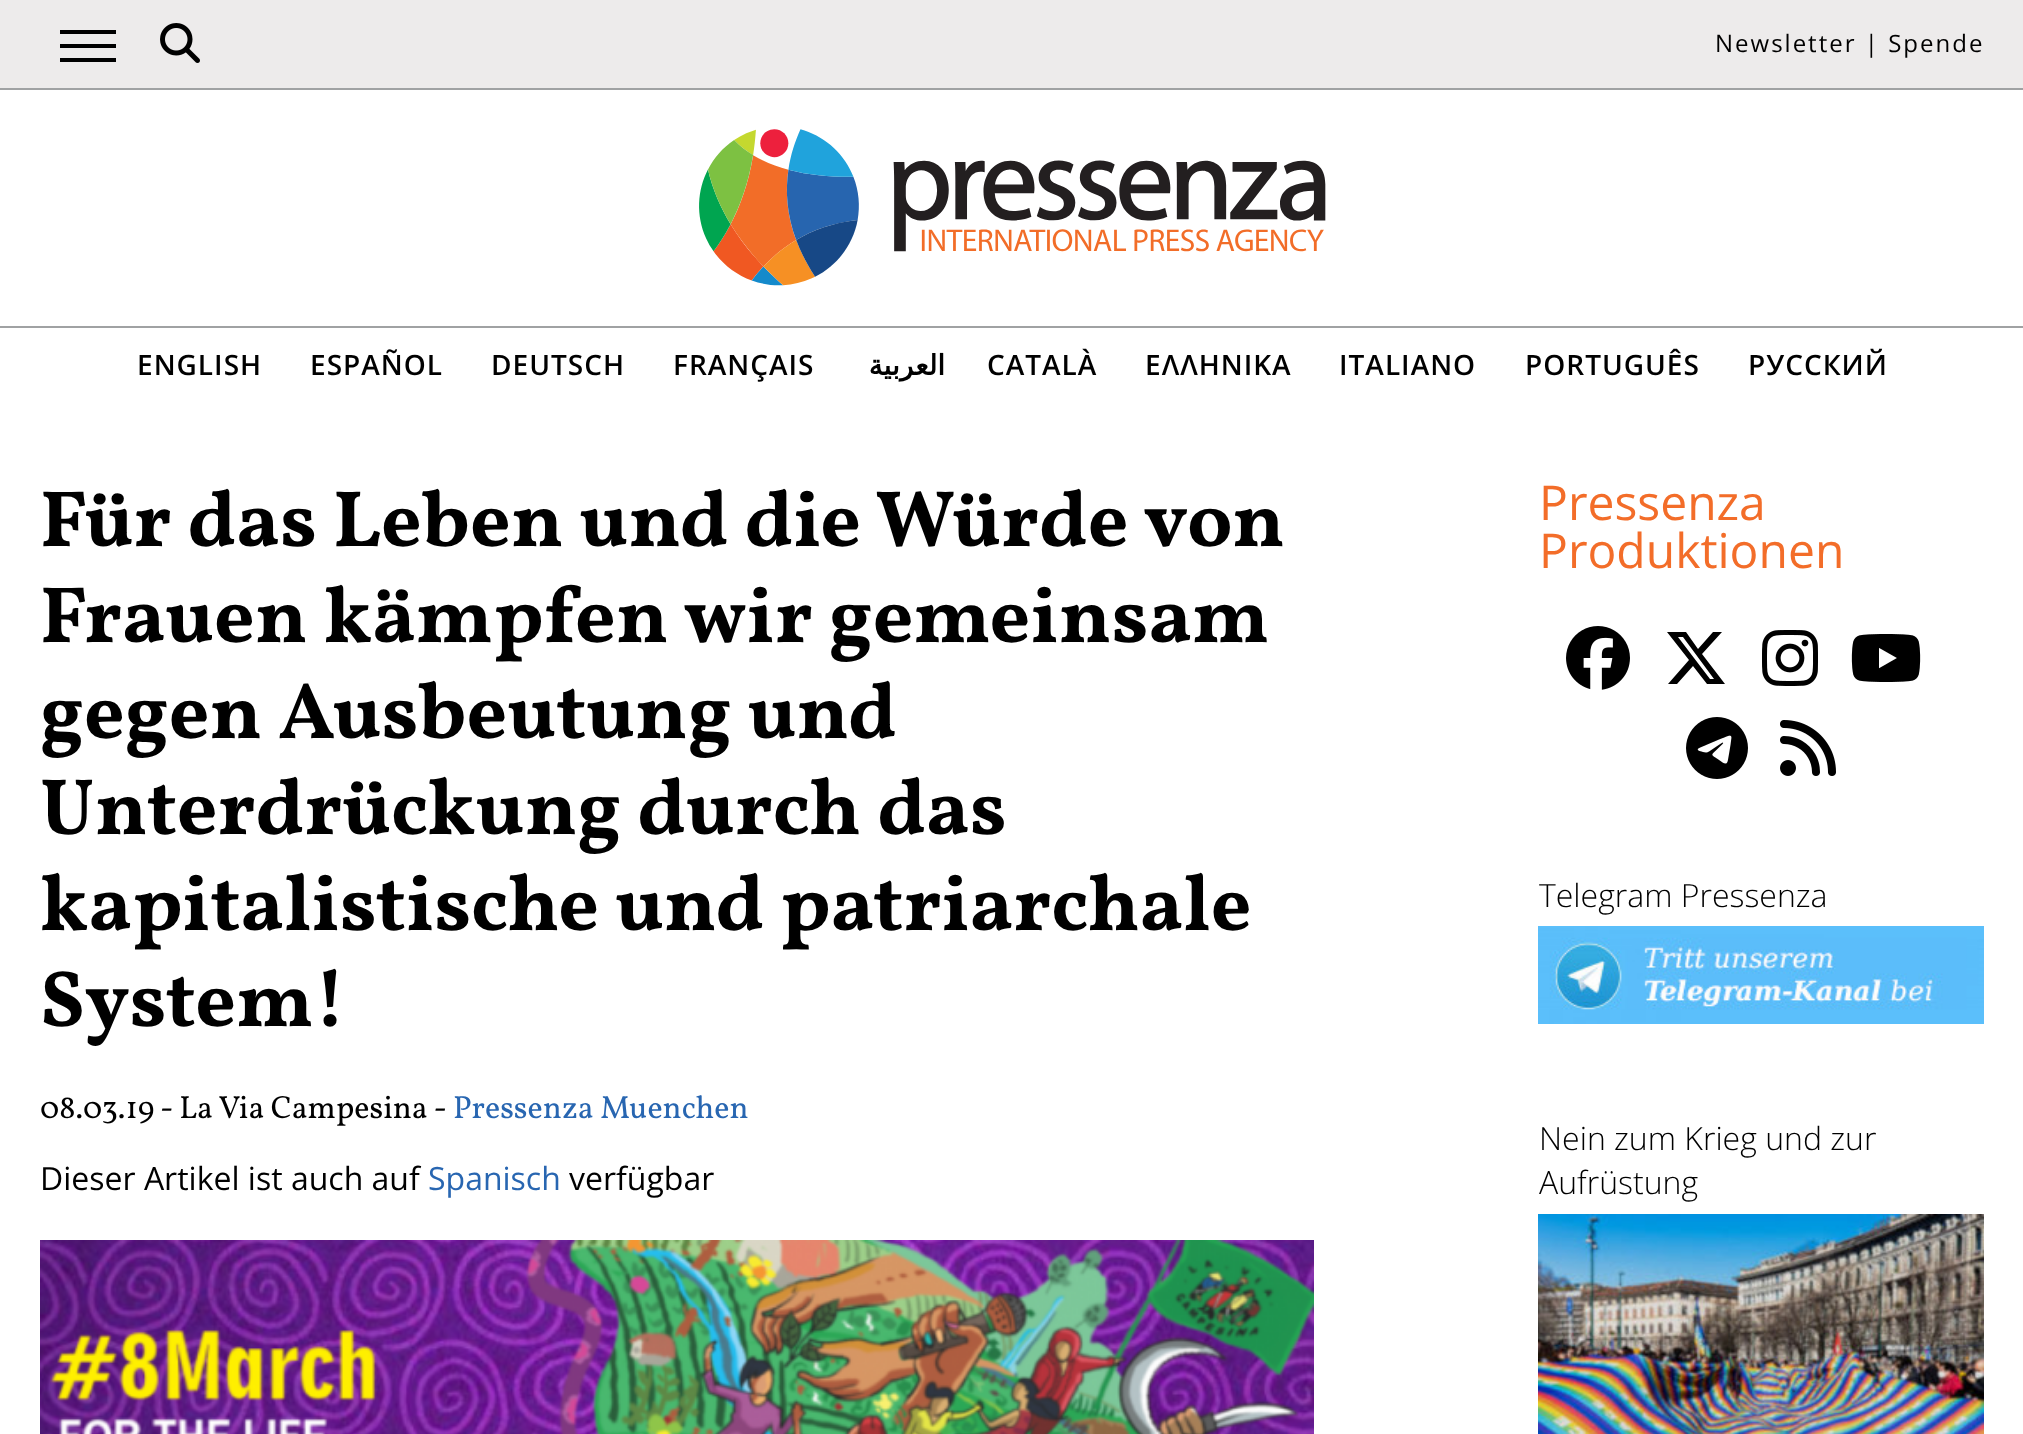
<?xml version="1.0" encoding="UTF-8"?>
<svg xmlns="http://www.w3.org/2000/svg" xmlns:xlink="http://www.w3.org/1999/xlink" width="2023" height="1434">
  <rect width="100%" height="100%" fill="#ffffff" />
  <rect width="2023" height="88" fill="#edebeb" />
  <rect y="88" width="2023" height="2" fill="#a0a2a3" />
  <rect x="60" y="30" width="56" height="4" fill="#000000" />
  <rect x="60" y="44" width="56" height="4" fill="#000000" />
  <rect x="60" y="58" width="56" height="4" fill="#000000" />
  <image x="160" y="23" width="40" height="40" xlink:href="image1.png" />
  <rect y="326" width="2023" height="2" fill="#a0a2a3" />
  <image x="699" y="129" width="627" height="157" xlink:href="image2.png" />
  <image x="40" y="1240" width="1274" height="194" xlink:href="image3.png" />
  <image x="1566" y="626" width="64" height="64" xlink:href="image4.png" />
  <path d="M 1713 632 h 9 h -9 h 9 l -20 22 l 23 30 h -18 l -14 -18 l -16 18 h -9 l 21 -24 l -22 -28 h 19 l 12 17 z m -3 47 h 4 h -4 h 4 l -31 -42 h -5 z" fill="#000000" />
  <image x="1762" y="630" width="56" height="56" xlink:href="image5.png" />
  <image x="1851" y="634" width="70" height="48" xlink:href="image6.png" />
  <image x="1686" y="717" width="62" height="62" xlink:href="image7.png" />
  <image x="1780" y="720" width="56" height="56" xlink:href="image8.png" />
  <image x="1538" y="926" width="446" height="98" xlink:href="image9.png" />
  <image x="1538" y="1214" width="446" height="220" xlink:href="image10.png" />
  <text x="1715" y="52" style="font-family: Open Sans; font-size: 24px; letter-spacing: 2px; fill: #000000">Newsletter | Spende</text>
  <text x="137" y="375" style="font-family: Open Sans; font-size: 28px; font-weight: 600; letter-spacing: 1px; fill: #000000">ENGLISH</text>
  <text x="310" y="375" style="font-family: Open Sans; font-size: 28px; font-weight: 600; letter-spacing: 1px; fill: #000000">ESPAÑOL</text>
  <text x="491" y="375" style="font-family: Open Sans; font-size: 28px; font-weight: 600; letter-spacing: 1px; fill: #000000">DEUTSCH</text>
  <text x="673" y="375" style="font-family: Open Sans; font-size: 28px; font-weight: 600; letter-spacing: 1px; fill: #000000">FRANÇAIS</text>
  <text x="945" y="375" style="font-family: DejaVu Sans; font-size: 28px; font-weight: bold; letter-spacing: 1px; direction: rtl; fill: #000000">العربية</text>
  <text x="987" y="375" style="font-family: Open Sans; font-size: 28px; font-weight: 600; letter-spacing: 1px; fill: #000000">CATALÀ</text>
  <text x="1145" y="375" style="font-family: Open Sans; font-size: 28px; font-weight: 600; letter-spacing: 1px; fill: #000000">ΕΛΛΗΝΙΚΑ</text>
  <text x="1339" y="375" style="font-family: Open Sans; font-size: 28px; font-weight: 600; letter-spacing: 1px; fill: #000000">ITALIANO</text>
  <text x="1525" y="375" style="font-family: Open Sans; font-size: 28px; font-weight: 600; letter-spacing: 1px; fill: #000000">PORTUGUÊS</text>
  <text x="1748" y="375" style="font-family: Open Sans; font-size: 28px; font-weight: 600; letter-spacing: 1px; fill: #000000">РУССКИЙ</text>
  <text x="40" y="546" style="font-family: Vollkorn; font-size: 80px; font-weight: bold; fill: #000000">Für das Leben und die Würde von</text>
  <text x="40" y="642" style="font-family: Vollkorn; font-size: 80px; font-weight: bold; fill: #000000">Frauen kämpfen wir gemeinsam</text>
  <text x="40" y="738" style="font-family: Vollkorn; font-size: 80px; font-weight: bold; fill: #000000">gegen Ausbeutung und</text>
  <text x="40" y="834" style="font-family: Vollkorn; font-size: 80px; font-weight: bold; fill: #000000">Unterdrückung durch das</text>
  <text x="40" y="930" style="font-family: Vollkorn; font-size: 80px; font-weight: bold; fill: #000000">kapitalistische und patriarchale</text>
  <text x="40" y="1026" style="font-family: Vollkorn; font-size: 80px; font-weight: bold; fill: #000000">System!</text>
  <text x="40" y="1118" style="font-family: Vollkorn; font-size: 32px; fill: #000000">08.03.19</text>
  <text x="160" y="1118" style="font-family: Vollkorn; font-size: 32px; fill: #000000">- La Via Campesina -</text>
  <text x="453" y="1118" style="font-family: Vollkorn; font-size: 32px; fill: #2866b1">Pressenza Muenchen</text>
  <text x="40" y="1190" style="font-family: Open Sans; font-size: 32px; fill: #000000">Dieser Artikel ist auch auf</text>
  <text x="428" y="1190" style="font-family: Open Sans; font-size: 32px; fill: #2866b1">Spanisch</text>
  <text x="569" y="1190" style="font-family: Open Sans; font-size: 32px; fill: #000000">verfügbar</text>
  <text x="1539" y="520" style="font-family: Open Sans; font-size: 48px; fill: #f36d29">Pressenza</text>
  <text x="1539" y="568" style="font-family: Open Sans; font-size: 48px; fill: #f36d29">Produktionen</text>
  <text x="1539" y="907" style="font-family: Open Sans; font-size: 32px; font-weight: 300; fill: #000000">Telegram Pressenza</text>
  <text x="1539" y="1150" style="font-family: Open Sans; font-size: 32px; font-weight: 300; fill: #000000">Nein zum Krieg und zur</text>
  <text x="1539" y="1194" style="font-family: Open Sans; font-size: 32px; font-weight: 300; fill: #000000">Aufrüstung</text>
</svg>
